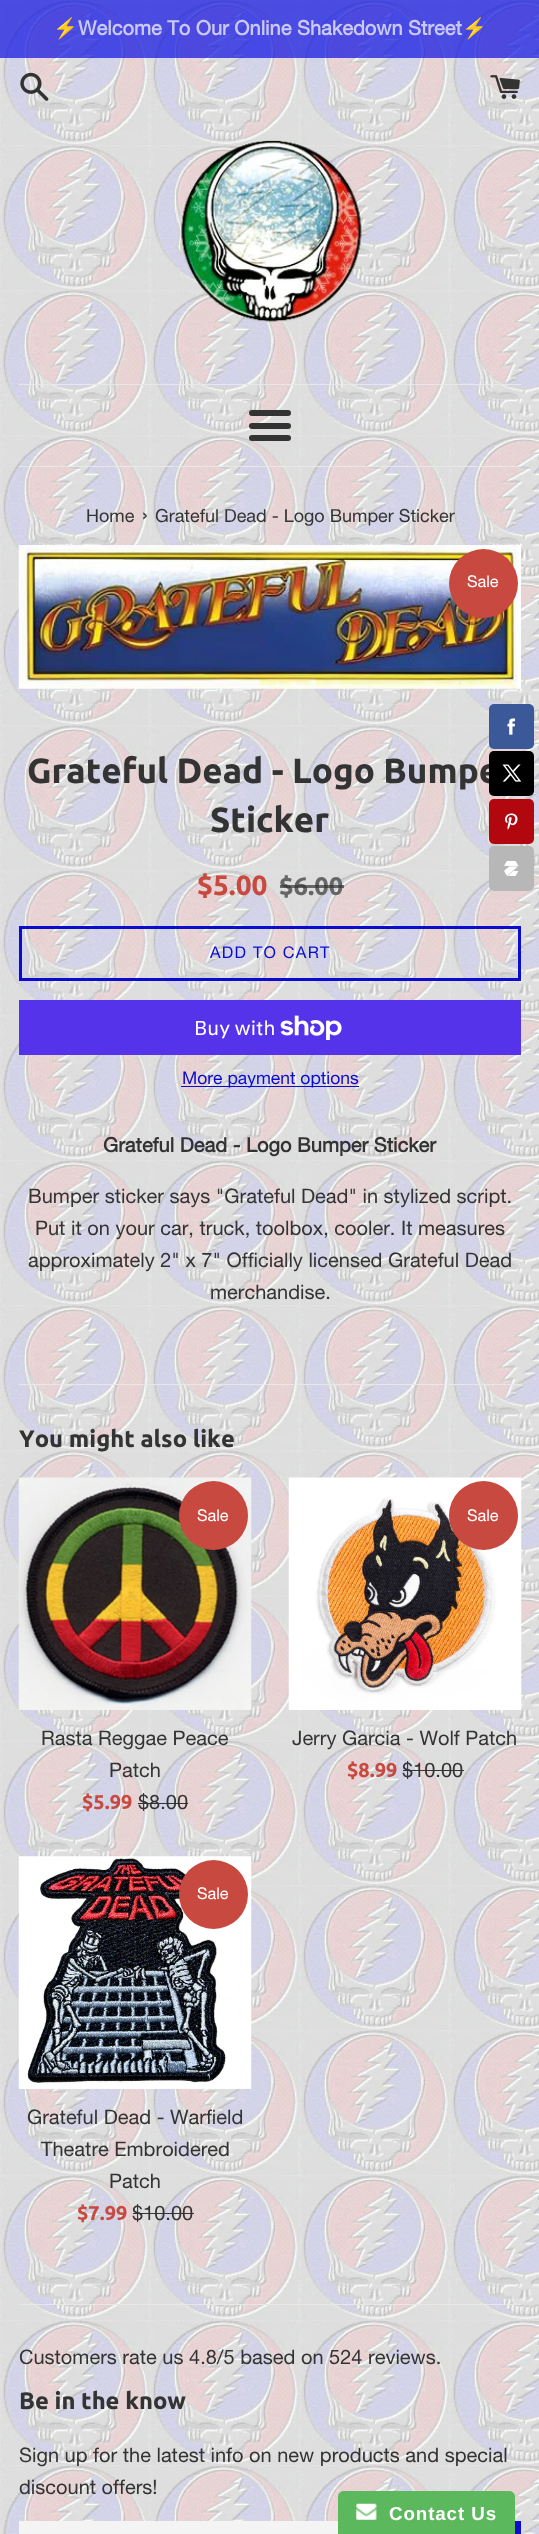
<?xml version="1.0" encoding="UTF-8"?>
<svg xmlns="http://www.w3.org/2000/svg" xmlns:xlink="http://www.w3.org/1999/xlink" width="539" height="2534">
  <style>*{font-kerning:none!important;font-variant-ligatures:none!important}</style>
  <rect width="100%" height="100%" fill="#ffffff" />
  <image x="0" y="0" width="539" height="2534" xlink:href="image1.png" />
  <rect width="539" height="58" fill="#0b0ee2" fill-opacity="0.7" />
  <image x="20" y="72" width="29" height="29" xlink:href="image2.png" />
  <image x="490" y="75" width="30" height="24" xlink:href="image3.png" />
  <image x="181" y="140" width="181" height="182" xlink:href="image4.png" />
  <rect x="19" y="384" width="502" height="1" fill="#e8e8e8" />
  <rect x="249" y="410" width="42" height="6" rx="3" fill="#333333" />
  <rect x="249" y="423" width="42" height="6" rx="3" fill="#333333" />
  <rect x="249" y="435" width="42" height="6" rx="3" fill="#333333" />
  <rect x="19" y="466" width="502" height="1" fill="#e8e8e8" />
  <image x="18" y="545" width="503" height="144" xlink:href="image5.png" />
  <circle cx="483.5" cy="583.5" r="34.5" fill="#c8493f" />
  <rect x="20.5" y="927.5" width="499" height="52" fill="none" stroke="#0a0dcf" stroke-width="3" />
  <rect x="19" y="1000" width="502" height="55" fill="#5433eb" />
  <image x="280" y="1015" width="62" height="25" xlink:href="image6.png" />
  <rect x="181" y="1086" width="178" height="1" fill="#0a0dcf" />
  <rect x="19" y="1384" width="502" height="1" fill="#e8e8e8" />
  <image x="18" y="1477" width="234" height="233" xlink:href="image7.png" />
  <circle cx="213.5" cy="1515.5" r="34.5" fill="#c8493f" />
  <rect x="138" y="1803" width="50" height="1" fill="#333333" />
  <image x="288" y="1477" width="234" height="233" xlink:href="image8.png" />
  <circle cx="483.5" cy="1515.5" r="34.5" fill="#c8493f" />
  <rect x="403" y="1770" width="61" height="1" fill="#333333" />
  <image x="18" y="1856" width="234" height="233" xlink:href="image9.png" />
  <circle cx="213.5" cy="1894.5" r="34.5" fill="#c8493f" />
  <rect x="133" y="2213" width="61" height="1" fill="#333333" />
  <rect x="19" y="2304" width="502" height="1" fill="#e8e8e8" />
  <rect x="19" y="2521" width="319" height="13" fill="#f4f4f4" />
  <rect x="515" y="2521" width="6" height="13" fill="#0a0dcf" />
  <rect x="489" y="704" width="45" height="45" rx="5" fill="#3b5998" />
  <image x="507" y="718" width="8" height="17" xlink:href="image10.png" />
  <rect x="489" y="799" width="45" height="45" rx="5" fill="#b2070f" />
  <image x="505" y="813" width="13" height="17" xlink:href="image12.png" />
  <rect x="489" y="846" width="45" height="45" rx="5" fill="#b7b7b7" />
  <image x="504" y="860" width="15" height="16" xlink:href="image13.png" />
  <path d="M 344 2491 h 165 c 3.5 0 6 2.5 6 6 v 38 h -177 v -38 c 0 -3.5 2.5 -6 6 -6 z" fill="#5cb85c" />
  <image x="356" y="2503" width="21" height="17" xlink:href="image14.png" />
  <text x="53" y="35" style="font-family: Noto Color Emoji; font-size: 20px; font-weight: bold; fill: #cac9f5">⚡</text>
  <text x="78" y="35" style="font-family: Helvetica Neue; font-size: 20px; font-weight: bold; fill: #cac9f5">Welcome To Our Online Shakedown Street</text>
  <text x="462" y="35" style="font-family: Noto Color Emoji; font-size: 20px; font-weight: bold; fill: #cac9f5">⚡</text>
  <text x="86" y="522" style="font-family: Helvetica Neue; font-size: 18px; fill: #333333">Home</text>
  <text x="142" y="522" style="font-family: Helvetica Neue; font-size: 22px; fill: #333333">›</text>
  <text x="155" y="522" style="font-family: Helvetica Neue; font-size: 18px; fill: #333333">Grateful Dead - Logo Bumper Sticker</text>
  <text x="467" y="587" style="font-family: Helvetica Neue; font-size: 16.25px; fill: #ffffff">Sale</text>
  <text x="27" y="783" style="font-family: Ubuntu; font-size: 35px; font-weight: bold; fill: #333333">Grateful Dead - Logo Bumpe</text>
  <text x="210" y="832" style="font-family: Ubuntu; font-size: 35px; font-weight: bold; fill: #333333">Sticker</text>
  <text x="197" y="895" style="font-family: Ubuntu; font-size: 28px; font-weight: bold; fill: #c8493f">$5.00</text>
  <text x="279" y="895" style="font-family: Ubuntu; font-size: 25.5px; font-weight: bold; fill: #666666">$6.00</text>
  <rect x="280" y="885" width="64" height="3" fill="#333333" fill-opacity="0.7" />
  <text x="210" y="958" style="font-family: Helvetica Neue; font-size: 16.25px; letter-spacing: 1.25px; fill: #0a0dcf">ADD TO CART</text>
  <text x="194" y="1035" style="font-family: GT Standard; font-size: 20px; fill: #ffffff">Buy with</text>
  <text x="182" y="1084" style="font-family: Helvetica Neue; font-size: 17.5px; fill: #0a0dcf">More payment options</text>
  <text x="103" y="1152" style="font-family: Helvetica Neue; font-size: 20px; font-weight: bold; fill: #333333">Grateful Dead - Logo Bumper Sticker</text>
  <text x="28" y="1203" style="font-family: Helvetica Neue; font-size: 20px; fill: #333333">Bumper sticker says "Grateful Dead" in stylized script.</text>
  <text x="35" y="1235" style="font-family: Helvetica Neue; font-size: 20px; fill: #333333">Put it on your car, truck, toolbox, cooler. It measures</text>
  <text x="28" y="1267" style="font-family: Helvetica Neue; font-size: 20px; fill: #333333">approximately 2" x 7" Officially licensed Grateful Dead</text>
  <text x="210" y="1299" style="font-family: Helvetica Neue; font-size: 20px; fill: #333333">merchandise.</text>
  <text x="19" y="1447" style="font-family: Ubuntu; font-size: 23.75px; font-weight: bold; fill: #333333">You might also like</text>
  <text x="197" y="1521" style="font-family: Helvetica Neue; font-size: 16.25px; fill: #ffffff">Sale</text>
  <text x="82" y="1809" style="font-family: Ubuntu; font-size: 20px; font-weight: bold; fill: #c8493f">$5.99</text>
  <text x="138" y="1809" style="font-family: Helvetica Neue; font-size: 20px; fill: #333333">$8.00</text>
  <text x="41" y="1745" style="font-family: Helvetica Neue; font-size: 20px; fill: #333333">Rasta Reggae Peace</text>
  <text x="109" y="1777" style="font-family: Helvetica Neue; font-size: 20px; fill: #333333">Patch</text>
  <text x="467" y="1521" style="font-family: Helvetica Neue; font-size: 16.25px; fill: #ffffff">Sale</text>
  <text x="347" y="1777" style="font-family: Ubuntu; font-size: 20px; font-weight: bold; fill: #c8493f">$8.99</text>
  <text x="402" y="1777" style="font-family: Helvetica Neue; font-size: 20px; fill: #333333">$10.00</text>
  <text x="292" y="1745" style="font-family: Helvetica Neue; font-size: 20px; fill: #333333">Jerry Garcia - Wolf Patch</text>
  <text x="197" y="1899" style="font-family: Helvetica Neue; font-size: 16.25px; fill: #ffffff">Sale</text>
  <text x="77" y="2220" style="font-family: Ubuntu; font-size: 20px; font-weight: bold; fill: #c8493f">$7.99</text>
  <text x="132" y="2220" style="font-family: Helvetica Neue; font-size: 20px; fill: #333333">$10.00</text>
  <text x="27" y="2124" style="font-family: Helvetica Neue; font-size: 20px; fill: #333333">Grateful Dead - Warfield</text>
  <text x="41" y="2156" style="font-family: Helvetica Neue; font-size: 20px; fill: #333333">Theatre Embroidered</text>
  <text x="109" y="2188" style="font-family: Helvetica Neue; font-size: 20px; fill: #333333">Patch</text>
  <text x="19" y="2364" style="font-family: Helvetica Neue; font-size: 20px; fill: #333333">Customers rate us 4.8/5 based on 524 reviews.</text>
  <text x="19" y="2409" style="font-family: Ubuntu; font-size: 23.75px; font-weight: bold; fill: #333333">Be in the know</text>
  <text x="19" y="2462" style="font-family: Helvetica Neue; font-size: 20px; fill: #333333">Sign up for the latest info on new products and special</text>
  <text x="19" y="2494" style="font-family: Helvetica Neue; font-size: 20px; fill: #333333">discount offers!</text>
  <rect x="489" y="751" width="45" height="45" rx="5" fill="#000000" />
  <image x="502" y="764" width="20" height="18" xlink:href="image11.png" />
  <text x="389" y="2520" style="font-family: Liberation Sans; font-size: 18.75px; font-weight: bold; letter-spacing: 0.9px; fill: #ffffff">Contact Us</text>
</svg>
